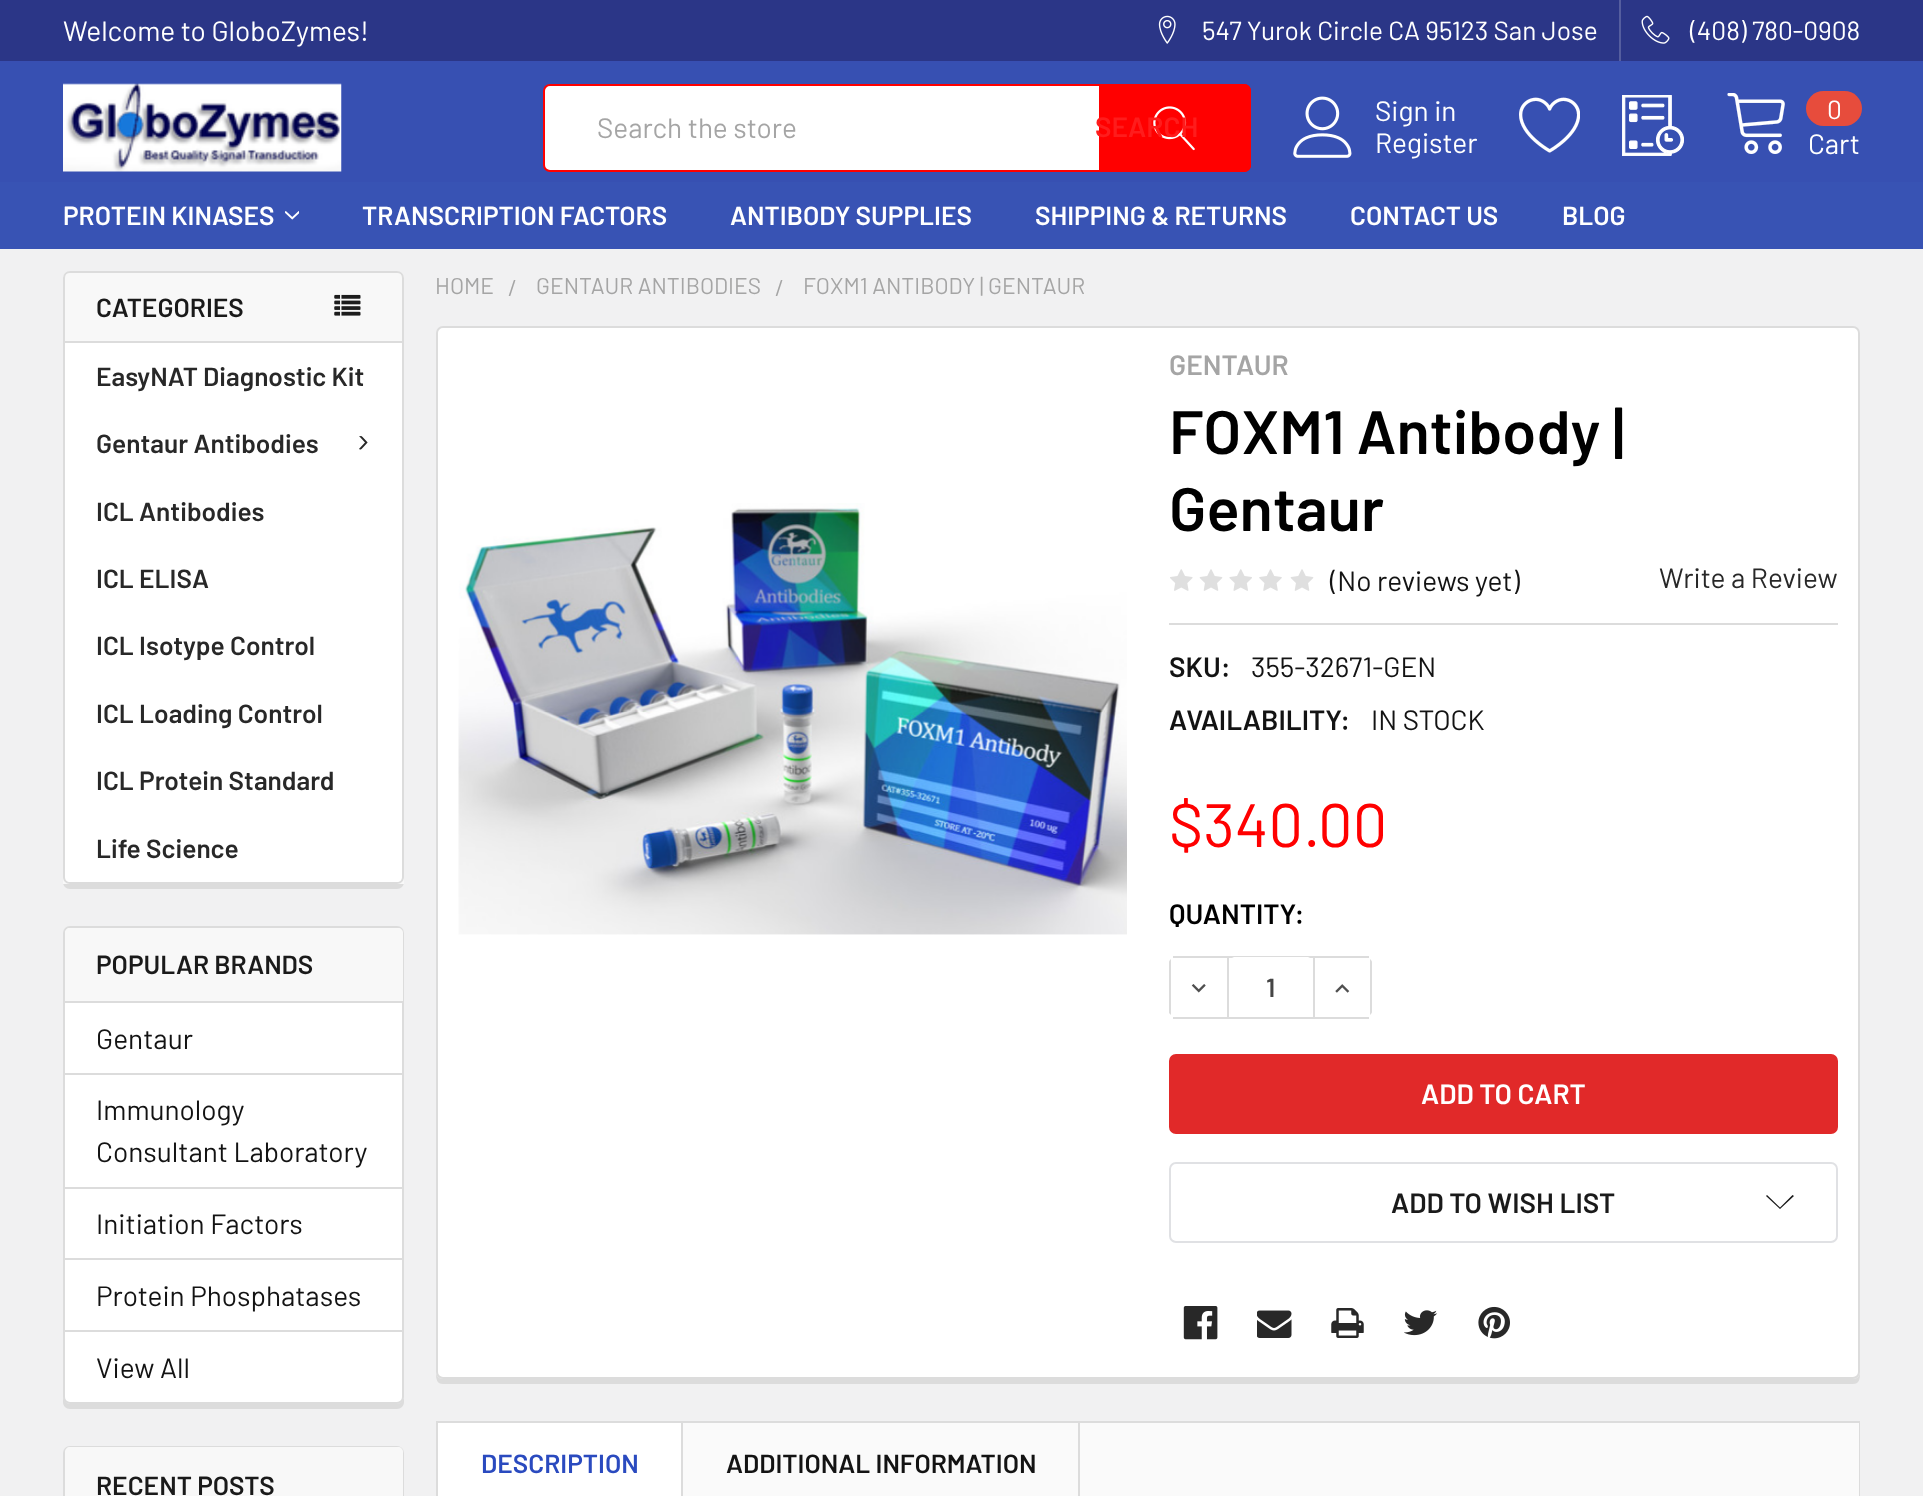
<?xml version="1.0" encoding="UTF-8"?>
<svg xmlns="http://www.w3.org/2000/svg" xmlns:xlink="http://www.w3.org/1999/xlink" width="1923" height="1496">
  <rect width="100%" height="100%" fill="#f1f1f2" />
  <rect y="63" width="1923" height="119" fill="#3750b2" />
  <rect width="1923" height="61" fill="#2b3687" />
  <rect y="61" width="1923" height="2" fill="#384fb2" />
  <image x="1158" y="15" width="18" height="29" xlink:href="image1.png" />
  <rect x="1619" width="2" height="61" fill="#555e9f" />
  <image x="1641" y="15" width="29" height="29" xlink:href="image2.png" />
  <image x="63" y="83" width="279" height="89" xlink:href="image3.png" />
  <rect x="544" y="85" width="706" height="86" rx="6" fill="#ffffff" stroke="#ff0000" stroke-width="2" />
  <path d="M 1099 84 h 145 c 4 0 7 3 7 7 v 74 c 0 4 -3 7 -7 7 h -145 z" fill="#ff0000" />
  <image x="1153" y="106" width="42" height="45" xlink:href="image4.png" />
  <image x="1293" y="96" width="59" height="62" xlink:href="image5.png" />
  <image x="1519" y="97" width="61" height="56" xlink:href="image6.png" />
  <image x="1622" y="95" width="62" height="61" xlink:href="image7.png" />
  <image x="1727" y="93" width="58" height="61" xlink:href="image8.png" />
  <rect x="1806" y="91" width="56" height="35" rx="17.5" fill="#e74c3c" />
  <rect y="182" width="1923" height="67" fill="#3853b4" />
  <image x="285" y="211" width="14" height="9" xlink:href="image9.png" />
  <path d="M 63 877 v 5 c 0 4 3 7 7 7 h 327 c 4 0 7 -3 7 -7 v -3 c -1 3 -4 5 -7 5 h -327 c -4 0 -7 -3 -7 -7 z" fill="#dcdcdc" />
  <path d="M 70 271 h 327 c 4 0 7 3 7 7 v 606 h -341 v -606 c 0 -4 3 -7 7 -7 z" fill="#f8f8f8" />
  <path d="M 70 272 h 327 c 3.5 0 6 2.5 6 6 v 64 h -339 v -64 c 0 -3.5 2.5 -6 6 -6 z" fill="none" stroke="#dcdcdc" stroke-width="2" />
  <image x="334" y="294" width="27" height="22" xlink:href="image10.png" />
  <path d="M 63 343 h 341 v 534 c 0 4 -3 7 -7 7 h -327 c -4 0 -7 -3 -7 -7 z" fill="#ffffff" />
  <path d="M 63 343 h 341 v 534 c 0 4 -3 7 -7 7 h -327 c -4 0 -7 -3 -7 -7 z m 2 0 h 337 v 534 c 0 3 -2 5 -5 5 h -327 c -3 0 -5 -2 -5 -5 z" fill="#dcdcdc" fill-rule="evenodd" />
  <image x="359" y="436" width="9" height="14" xlink:href="image11.png" />
  <path d="M 63 1396 v 6 c 0 4 3 7 7 7 h 327 c 4 0 7 -3 7 -7 v -4 c -1 3 -4 6 -7 6 h -327 c -4 0 -7 -4 -7 -8 z" fill="#dcdcdc" />
  <rect x="64" y="927" width="339" height="476" rx="6" fill="#ffffff" stroke="#dcdcdc" stroke-width="2" />
  <path d="M 70 928 h 328 c 3 0 5 2 5 5 v 70 h -338 v -70 c 0 -3 2 -5 5 -5 z" fill="#f8f8f8" />
  <rect x="65" y="1001" width="338" height="2" fill="#dcdcdc" />
  <rect x="65" y="1073" width="338" height="2" fill="#dcdcdc" />
  <rect x="65" y="1187" width="338" height="2" fill="#dcdcdc" />
  <rect x="65" y="1258" width="338" height="2" fill="#dcdcdc" />
  <rect x="65" y="1330" width="338" height="2" fill="#dcdcdc" />
  <rect x="64" y="1447" width="339" height="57" rx="6" fill="none" stroke="#dcdcdc" stroke-width="2" />
  <path d="M 70 1447 h 328 c 3 0 5 2 5 5 v 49 h -338 v -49 c 0 -3 2 -5 5 -5 z" fill="#f8f8f8" />
  <path d="M 436 1374 c 0 5 1 10 7 10 h 1410 c 6 0 7 -5 7 -10 c -1 3 -4 5 -7 5 h -1410 c -3 0 -6 -2 -7 -5 z" fill="#dcdcdc" />
  <rect x="437" y="327" width="1422" height="1051" rx="6" fill="#ffffff" stroke="#dcdcdc" stroke-width="2" />
  <image x="458" y="503" width="669" height="432" xlink:href="image12.png" />
  <image x="1170" y="569" width="23" height="22" xlink:href="image13.png" />
  <image x="1199" y="569" width="24" height="22" xlink:href="image14.png" />
  <image x="1229" y="569" width="23" height="22" xlink:href="image15.png" />
  <image x="1259" y="569" width="23" height="22" xlink:href="image16.png" />
  <image x="1290" y="569" width="24" height="22" xlink:href="image14.png" />
  <rect x="1169" y="623" width="669" height="2" fill="#dcdcdc" />
  <rect x="1173" y="956" width="196" height="2" fill="#dcdcdc" />
  <rect x="1173" y="1017" width="196" height="2" fill="#dcdcdc" />
  <rect x="1227" y="957" width="2" height="60" fill="#dcdcdc" />
  <path d="M 1169 962 v 51 l 2 2 v -56 c -1 1 -2 2 -2 3 z" fill="#dcdcdc" />
  <image x="1191" y="984" width="15" height="9" xlink:href="image17.png" />
  <path d="M 1234 1017 c -3 -1 -5 -4 -5 -7 v -46 c 0 -3 2 -6 5 -7 h 74 c 3 1 5 4 5 7 v 46 c 0 3 -2 6 -5 7 z" fill="#ffffff" />
  <path d="M 1370 1015 v -56 c 1 1 2 2 2 3 v 50 c 0 1 -1 2 -2 3 z" fill="#dcdcdc" />
  <rect x="1313" y="957" width="2" height="60" fill="#dcdcdc" />
  <image x="1335" y="984" width="15" height="9" xlink:href="image18.png" />
  <rect x="1170" y="1055" width="667" height="78" rx="6" fill="#e12929" stroke="#e12929" stroke-width="2" />
  <rect x="1170" y="1163" width="667" height="79" rx="6" fill="none" stroke="#e0e1e4" stroke-width="2" />
  <path d="M 1780 1207.5 l 12.5 -12.5 l 1.5 1 l -14 13 l -14 -13 l 1 -1 z" fill="#1a1a1a" fill-rule="evenodd" />
  <image x="1183" y="1306" width="35" height="34" xlink:href="image19.png" />
  <image x="1257" y="1310" width="35" height="28" xlink:href="image20.png" />
  <image x="1331" y="1308" width="33" height="30" xlink:href="image21.png" />
  <image x="1404" y="1310" width="34" height="26" xlink:href="image22.png" />
  <image x="1478" y="1306" width="32" height="33" xlink:href="image23.png" />
  <rect x="437" y="1422" width="1422" height="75" fill="none" stroke="#dcdcdc" stroke-width="2" />
  <rect x="683" y="1423" width="1176" height="73" fill="#fafafa" />
  <rect x="438" y="1423" width="243" height="73" fill="#ffffff" />
  <rect x="681" y="1423" width="2" height="73" fill="#dcdcdc" />
  <rect x="1078" y="1423" width="2" height="73" fill="#dcdcdc" />
  <text x="63" y="41" style="font-family: Barlow; font-size: 28px; fill: #ffffff">Welcome to GloboZymes!</text>
  <text x="1202" y="40" style="font-family: Barlow; font-size: 26.25px; fill: #ffffff">547 Yurok Circle CA 95123 San Jose</text>
  <text x="1690" y="40" style="font-family: Barlow; font-size: 26.25px; fill: #ffffff">(408) 780-0908</text>
  <text x="597" y="138" style="font-family: Barlow; font-size: 28px; fill: #a5a5a5">Search the store</text>
  <text x="1095" y="137" style="font-family: Barlow; font-size: 28px; font-weight: 600; fill: #ff1c1c">SEARCH</text>
  <text x="1375" y="121" style="font-family: Barlow; font-size: 28px; fill: #ffffff">Sign in</text>
  <text x="1375" y="153" style="font-family: Barlow; font-size: 28px; fill: #ffffff">Register</text>
  <text x="1827" y="119" style="font-family: Barlow; font-size: 26.25px; fill: #ffffff">0</text>
  <text x="1808" y="154" style="font-family: Barlow; font-size: 28px; fill: #ffffff">Cart</text>
  <text x="63" y="225" style="font-family: Barlow; font-size: 26.25px; font-weight: 600; fill: #ffffff">PROTEIN KINASES</text>
  <text x="362" y="225" style="font-family: Barlow; font-size: 26.25px; font-weight: 600; fill: #ffffff">TRANSCRIPTION FACTORS</text>
  <text x="730" y="225" style="font-family: Barlow; font-size: 26.25px; font-weight: 600; fill: #ffffff">ANTIBODY SUPPLIES</text>
  <text x="1035" y="225" style="font-family: Barlow; font-size: 26.25px; font-weight: 600; fill: #ffffff">SHIPPING &amp; RETURNS</text>
  <text x="1350" y="225" style="font-family: Barlow; font-size: 26.25px; font-weight: 600; fill: #ffffff">CONTACT US</text>
  <text x="1562" y="225" style="font-family: Barlow; font-size: 26.25px; font-weight: 600; fill: #ffffff">BLOG</text>
  <text x="96" y="317" style="font-family: Barlow; font-size: 26.25px; font-weight: 600; fill: #1a1a1a">CATEGORIES</text>
  <text x="96" y="386" style="font-family: Barlow; font-size: 26.25px; font-weight: 600; fill: #282828">EasyNAT Diagnostic Kit</text>
  <text x="96" y="453" style="font-family: Barlow; font-size: 26.25px; font-weight: 600; fill: #282828">Gentaur Antibodies</text>
  <text x="96" y="521" style="font-family: Barlow; font-size: 26.25px; font-weight: 600; fill: #282828">ICL Antibodies</text>
  <text x="96" y="588" style="font-family: Barlow; font-size: 26.25px; font-weight: 600; fill: #282828">ICL ELISA</text>
  <text x="96" y="655" style="font-family: Barlow; font-size: 26.25px; font-weight: 600; fill: #282828">ICL Isotype Control</text>
  <text x="96" y="723" style="font-family: Barlow; font-size: 26.25px; font-weight: 600; fill: #282828">ICL Loading Control</text>
  <text x="96" y="790" style="font-family: Barlow; font-size: 26.25px; font-weight: 600; fill: #282828">ICL Protein Standard</text>
  <text x="96" y="858" style="font-family: Barlow; font-size: 26.25px; font-weight: 600; fill: #282828">Life Science</text>
  <text x="96" y="974" style="font-family: Barlow; font-size: 26.25px; font-weight: 600; fill: #1a1a1a">POPULAR BRANDS</text>
  <text x="96" y="1049" style="font-family: Barlow; font-size: 28px; fill: #131313">Gentaur</text>
  <text x="96" y="1120" style="font-family: Barlow; font-size: 28px; fill: #131313">Immunology</text>
  <text x="96" y="1162" style="font-family: Barlow; font-size: 28px; fill: #131313">Consultant Laboratory</text>
  <text x="96" y="1234" style="font-family: Barlow; font-size: 28px; fill: #131313">Initiation Factors</text>
  <text x="96" y="1306" style="font-family: Barlow; font-size: 28px; fill: #131313">Protein Phosphatases</text>
  <text x="96" y="1378" style="font-family: Barlow; font-size: 28px; fill: #131313">View All</text>
  <text x="96" y="1495" style="font-family: Barlow; font-size: 26.25px; font-weight: 600; fill: #1a1a1a">RECENT POSTS</text>
  <text x="435" y="294" style="font-family: Barlow; font-size: 22.75px; fill: #a5a5a5">HOME</text>
  <text x="508" y="296" style="font-family: Barlow; font-size: 22.75px; fill: #a5a5a5">/</text>
  <text x="536" y="294" style="font-family: Barlow; font-size: 22.75px; fill: #a5a5a5">GENTAUR ANTIBODIES</text>
  <text x="775" y="296" style="font-family: Barlow; font-size: 22.75px; fill: #a5a5a5">/</text>
  <text x="803" y="294" style="font-family: Barlow; font-size: 22.75px; fill: #a5a5a5">FOXM1 ANTIBODY | GENTAUR</text>
  <text x="1169" y="375" style="font-family: Barlow; font-size: 28px; font-weight: 600; fill: #a5a5a5">GENTAUR</text>
  <text x="1169" y="454" style="font-family: Barlow; font-size: 61.25px; font-weight: 600; fill: #000000">FOXM1 Antibody |</text>
  <text x="1169" y="531" style="font-family: Barlow; font-size: 61.25px; font-weight: 600; fill: #000000">Gentaur</text>
  <text x="1330" y="591" style="font-family: Barlow; font-size: 28px; fill: #131313">(No reviews yet)</text>
  <text x="1659" y="588" style="font-family: Barlow; font-size: 28px; fill: #282828">Write a Review</text>
  <text x="1169" y="677" style="font-family: Barlow; font-size: 28px; font-weight: 600; fill: #131313">SKU:</text>
  <text x="1251" y="677" style="font-family: Barlow; font-size: 28px; fill: #131313">355-32671-GEN</text>
  <text x="1169" y="730" style="font-family: Barlow; font-size: 28px; font-weight: 600; fill: #131313">AVAILABILITY:</text>
  <text x="1371" y="730" style="font-family: Barlow; font-size: 28px; fill: #131313">IN STOCK</text>
  <text x="1169" y="847" style="font-family: Barlow; font-size: 61.25px; fill: #ff0000">$340.00</text>
  <text x="1169" y="924" style="font-family: Barlow; font-size: 28px; font-weight: 600; fill: #000000">QUANTITY:</text>
  <text x="1266" y="997" style="font-family: Barlow; font-size: 26.25px; font-weight: 600; fill: #454545">1</text>
  <text x="1421" y="1104" style="font-family: Barlow; font-size: 28px; font-weight: 600; fill: #ffffff">ADD TO CART</text>
  <text x="1391" y="1213" style="font-family: Barlow; font-size: 28px; font-weight: 600; fill: #1a1a1a">ADD TO WISH LIST</text>
  <text x="481" y="1473" style="font-family: Barlow; font-size: 26.25px; font-weight: 600; fill: #2a4abf">DESCRIPTION</text>
  <text x="726" y="1473" style="font-family: Barlow; font-size: 26.25px; font-weight: 600; fill: #131313">ADDITIONAL INFORMATION</text>
</svg>
